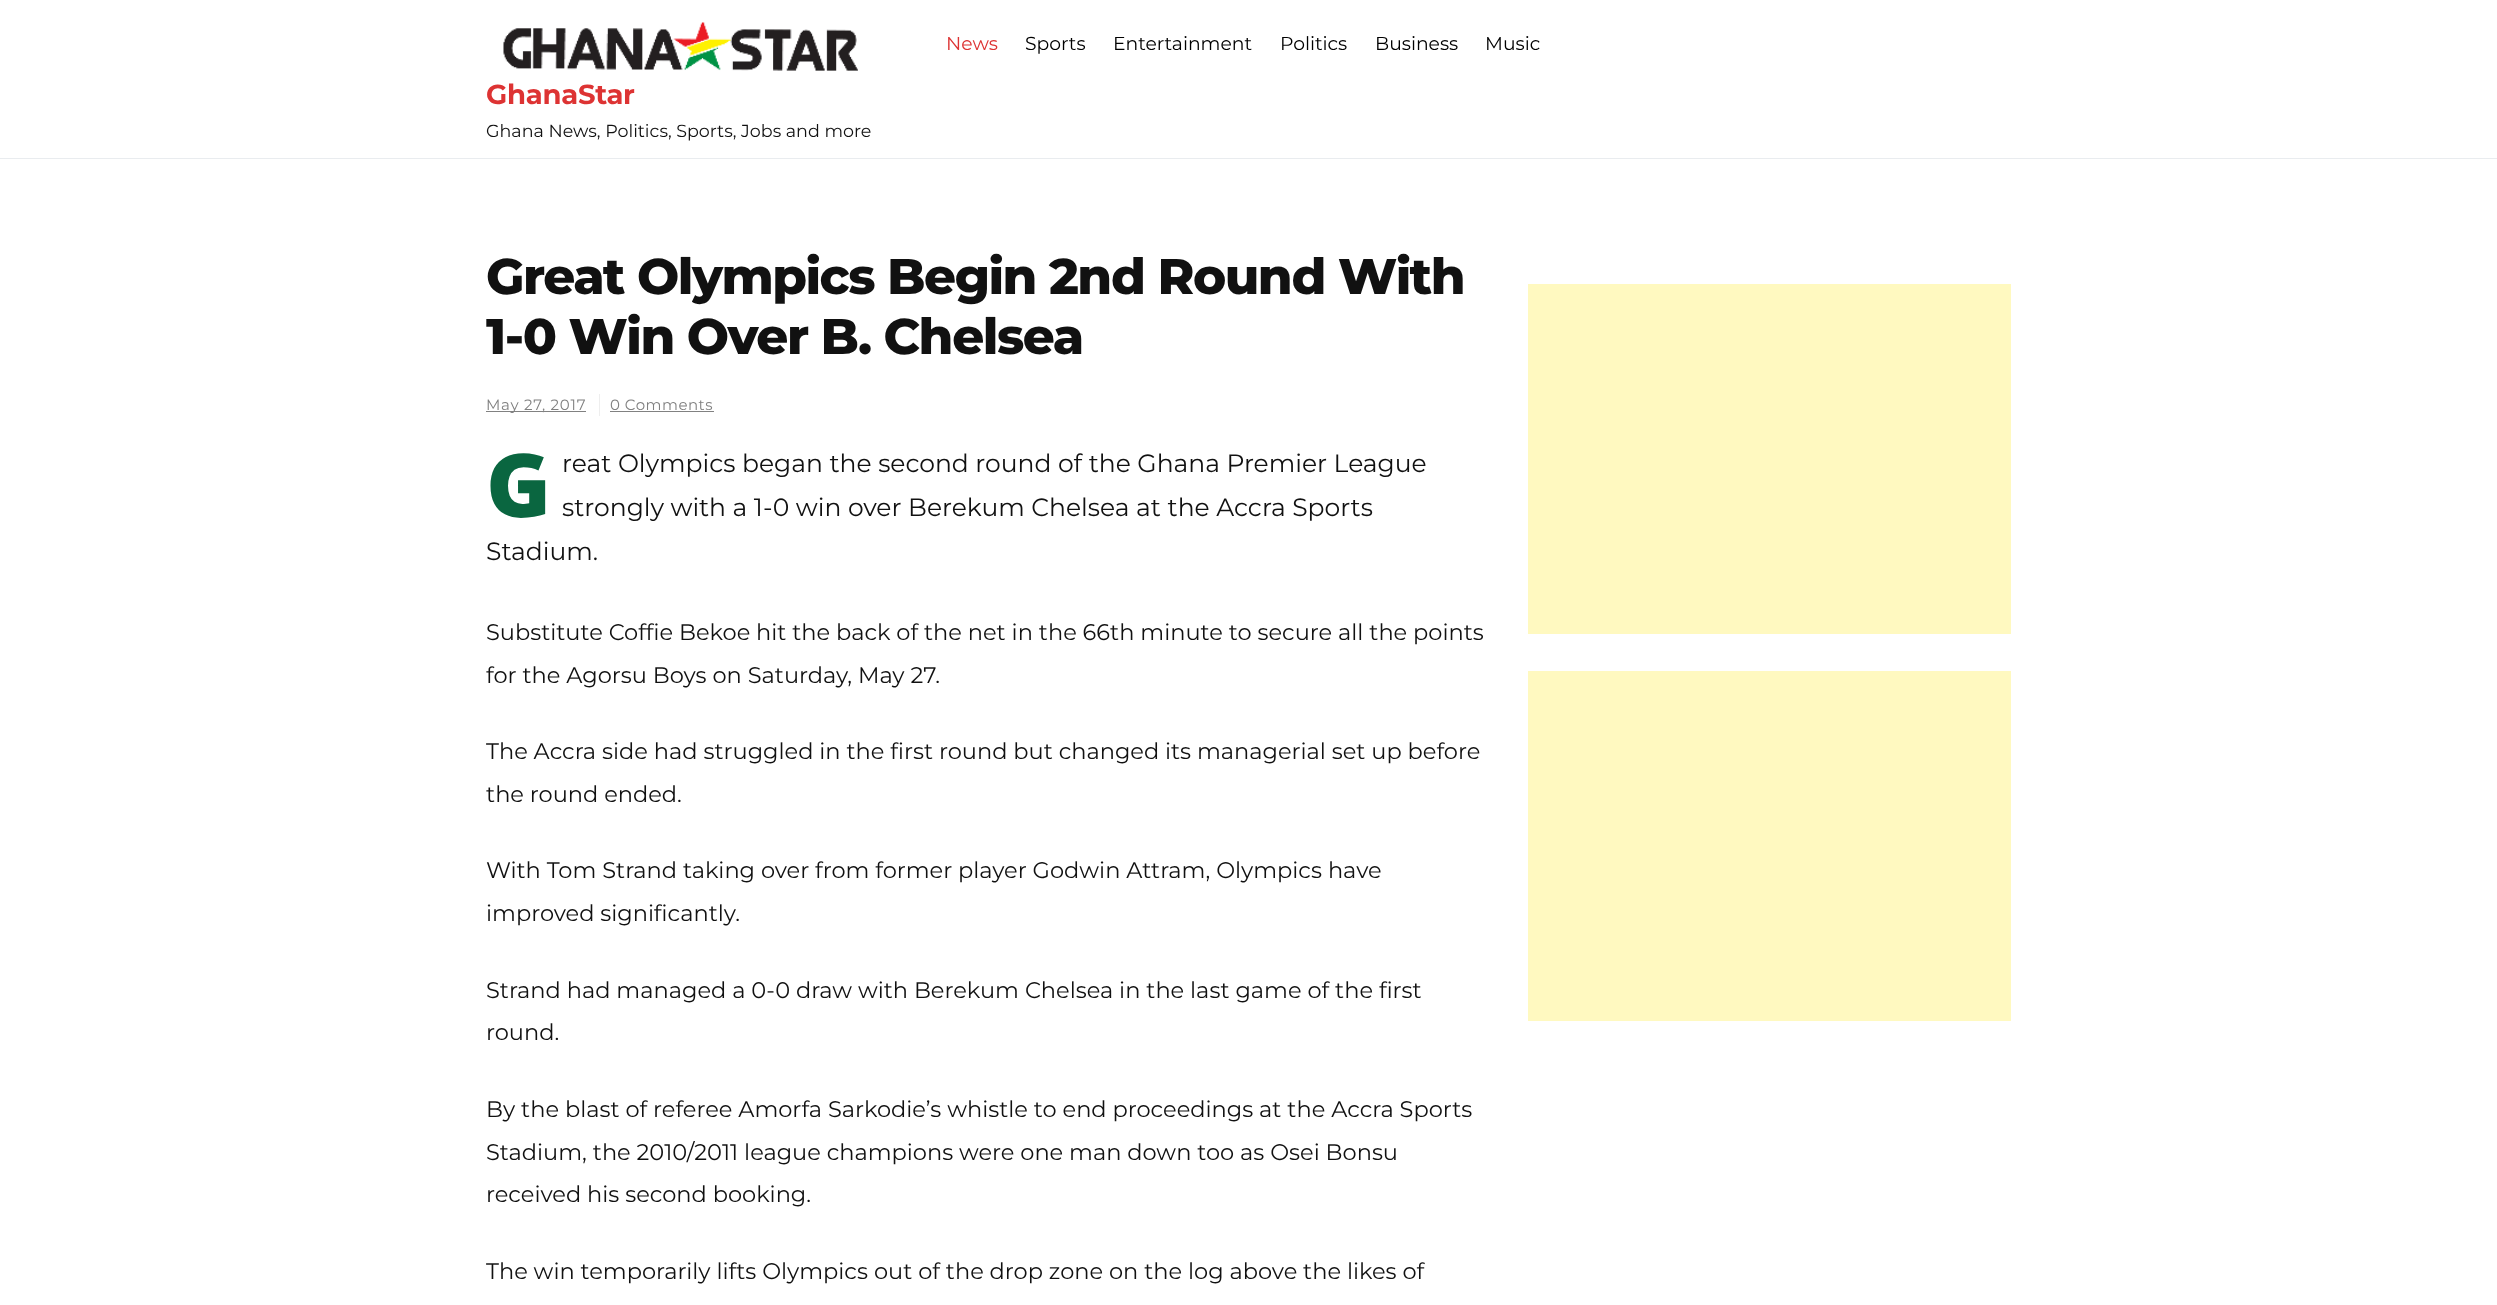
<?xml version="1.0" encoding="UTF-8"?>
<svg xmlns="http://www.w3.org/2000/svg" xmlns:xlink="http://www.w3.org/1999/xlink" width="2497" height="1305">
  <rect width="100%" height="100%" fill="#ffffff" />
  <rect y="158" width="2497" height="1" fill="#e9ecef" />
  <image x="503" y="22" width="355" height="49" xlink:href="image1.png" />
  <rect x="599" y="394" width="1" height="22" fill="#eeeeee" />
  <rect x="486" y="411" width="100" height="1" fill="#818181" />
  <rect x="610" y="411" width="104" height="1" fill="#818181" />
  <rect x="1528" y="284" width="483" height="350" fill="#fff9c0" />
  <rect x="1528" y="671" width="483" height="350" fill="#fff9c0" />
  <text x="946" y="50" style="font-family: Montserrat; font-size: 18.75px; fill: #dd3333">News</text>
  <text x="1025" y="50" style="font-family: Montserrat; font-size: 18.75px; fill: #000000">Sports</text>
  <text x="1113" y="50" style="font-family: Montserrat; font-size: 18.75px; fill: #000000">Entertainment</text>
  <text x="1280" y="50" style="font-family: Montserrat; font-size: 18.75px; fill: #000000">Politics</text>
  <text x="1375" y="50" style="font-family: Montserrat; font-size: 18.75px; fill: #000000">Business</text>
  <text x="1485" y="50" style="font-family: Montserrat; font-size: 18.75px; fill: #000000">Music</text>
  <text x="486" y="104" style="font-family: Montserrat; font-size: 27.5px; font-weight: bold; letter-spacing: -0.25px; fill: #dd3333">GhanaStar</text>
  <text x="486" y="137" style="font-family: Montserrat; font-size: 17.5px; fill: #111111">Ghana News, Politics, Sports, Jobs and more</text>
  <text x="486" y="294" style="font-family: Montserrat; font-size: 50px; font-weight: 800; letter-spacing: -1.5px; fill: #111111">Great Olympics Begin 2nd Round With</text>
  <text x="486" y="354" style="font-family: Montserrat; font-size: 50px; font-weight: 800; letter-spacing: -1.5px; fill: #111111">1-0 Win Over B. Chelsea</text>
  <text x="486" y="410" style="font-family: Montserrat; font-size: 15px; letter-spacing: 0.75px; fill: #818181">May 27, 2017</text>
  <text x="610" y="410" style="font-family: Montserrat; font-size: 15px; letter-spacing: 0.5px; fill: #818181">0 Comments</text>
  <text x="486" y="517" style="font-family: Noto Sans; font-size: 88px; font-weight: 900; fill: #0a6640">G</text>
  <text x="562" y="472" style="font-family: Montserrat; font-size: 25px; fill: #111111">reat Olympics began the second round of the Ghana Premier League</text>
  <text x="562" y="516" style="font-family: Montserrat; font-size: 25px; fill: #111111">strongly with a 1-0 win over Berekum Chelsea at the Accra Sports</text>
  <text x="486" y="560" style="font-family: Montserrat; font-size: 25px; fill: #111111">Stadium.</text>
  <text x="486" y="640" style="font-family: Montserrat; font-size: 22.5px; fill: #111111">Substitute Coffie Bekoe hit the back of the net in the 66th minute to secure all the points</text>
  <text x="486" y="683" style="font-family: Montserrat; font-size: 22.5px; fill: #111111">for the Agorsu Boys on Saturday, May 27.</text>
  <text x="486" y="759" style="font-family: Montserrat; font-size: 22.5px; fill: #111111">The Accra side had struggled in the first round but changed its managerial set up before</text>
  <text x="486" y="802" style="font-family: Montserrat; font-size: 22.5px; fill: #111111">the round ended.</text>
  <text x="486" y="878" style="font-family: Montserrat; font-size: 22.5px; fill: #111111">With Tom Strand taking over from former player Godwin Attram, Olympics have</text>
  <text x="486" y="921" style="font-family: Montserrat; font-size: 22.5px; fill: #111111">improved significantly.</text>
  <text x="486" y="998" style="font-family: Montserrat; font-size: 22.5px; fill: #111111">Strand had managed a 0-0 draw with Berekum Chelsea in the last game of the first</text>
  <text x="486" y="1040" style="font-family: Montserrat; font-size: 22.5px; fill: #111111">round.</text>
  <text x="486" y="1117" style="font-family: Montserrat; font-size: 22.5px; fill: #111111">By the blast of referee Amorfa Sarkodie’s whistle to end proceedings at the Accra Sports</text>
  <text x="486" y="1160" style="font-family: Montserrat; font-size: 22.5px; fill: #111111">Stadium, the 2010/2011 league champions were one man down too as Osei Bonsu</text>
  <text x="486" y="1202" style="font-family: Montserrat; font-size: 22.5px; fill: #111111">received his second booking.</text>
  <text x="486" y="1279" style="font-family: Montserrat; font-size: 22.5px; fill: #111111">The win temporarily lifts Olympics out of the drop zone on the log above the likes of</text>
</svg>
